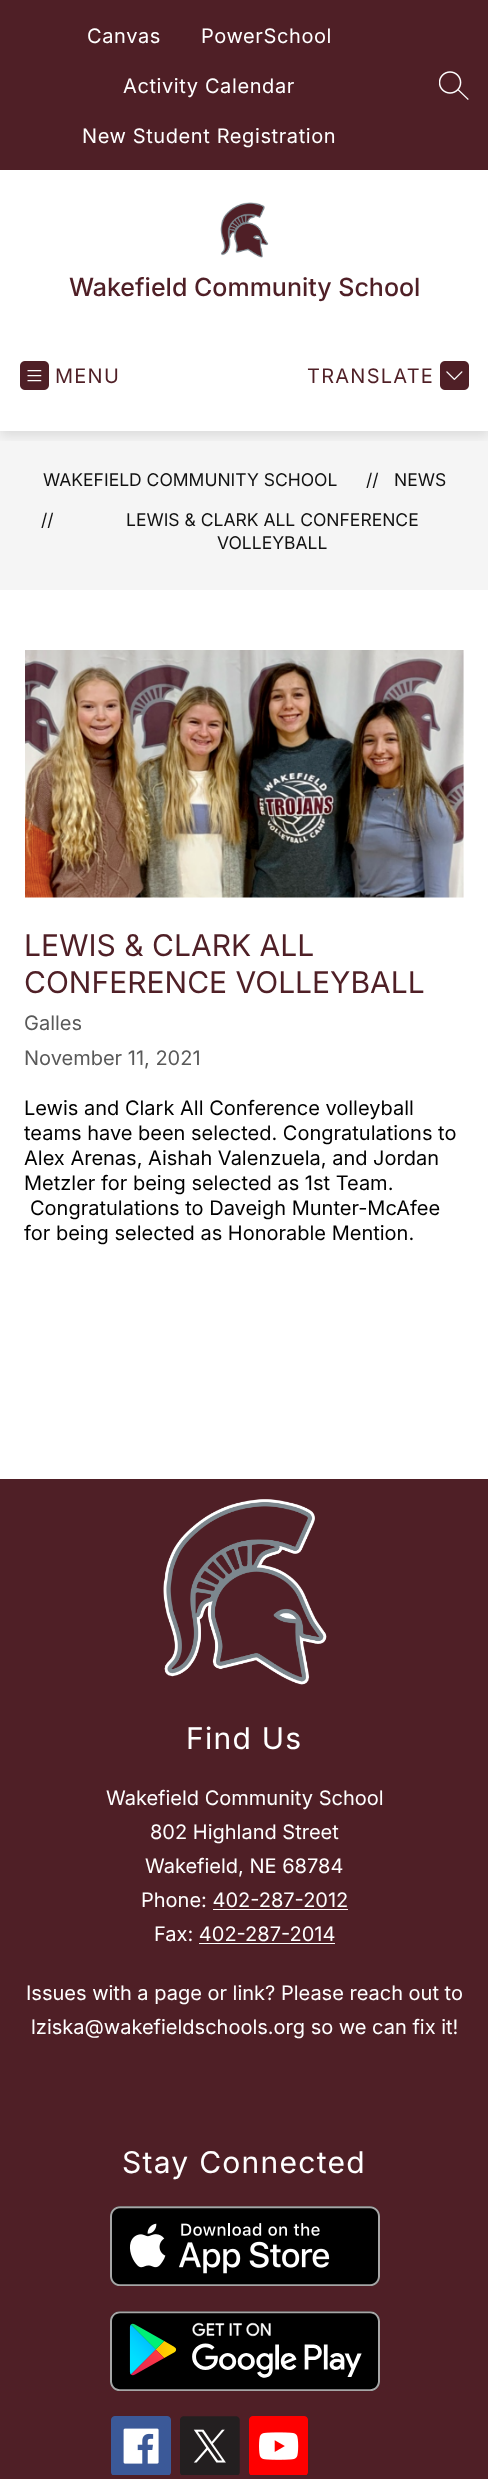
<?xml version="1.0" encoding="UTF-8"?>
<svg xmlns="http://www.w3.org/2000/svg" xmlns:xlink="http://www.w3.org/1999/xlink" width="488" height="2479">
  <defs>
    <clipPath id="clip1"><rect x="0" y="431" width="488" height="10" /></clipPath>
  </defs>
  <rect width="100%" height="100%" fill="#ffffff" />
  <rect y="431" width="488" height="159" fill="#f5f5f5" />
  <g clip-path="url(#clip1)">
    <rect y="5" width="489" height="431" fill="#000000" fill-opacity="0.1" filter="blur(6px)" />
  </g>
  <rect width="488" height="170" fill="#4f1f26" />
  <image x="439" y="71" width="30" height="29" xlink:href="image1.png" />
  <image x="220" y="202" width="49" height="56" xlink:href="image2.png" />
  <image x="20" y="361" width="29" height="29" xlink:href="image3.png" />
  <image x="440" y="361" width="29" height="29" xlink:href="image4.png" />
  <image x="25" y="650" width="439" height="248" xlink:href="image5.png" />
  <rect y="1479" width="488" height="1000" fill="#4f1f26" />
  <image x="163" y="1499" width="164" height="186" xlink:href="image6.png" />
  <rect x="213" y="1909" width="135" height="1" fill="#ffffff" />
  <rect x="199" y="1943" width="136" height="1" fill="#ffffff" />
  <image x="110" y="2206" width="270" height="80" xlink:href="image7.png" />
  <image x="110" y="2311" width="270" height="80" xlink:href="image8.png" />
  <image x="111" y="2416" width="60" height="59" xlink:href="image9.png" />
  <image x="180" y="2416" width="60" height="59" xlink:href="image10.png" />
  <image x="249" y="2416" width="59" height="59" xlink:href="image11.png" />
  <text x="87" y="43" style="font-family: Inter; font-size: 20px; letter-spacing: 0.6px; fill: #ffffff">Canvas</text>
  <text x="201" y="43" style="font-family: Inter; font-size: 20px; letter-spacing: 0.6px; fill: #ffffff">PowerSchool</text>
  <text x="123" y="93" style="font-family: Inter; font-size: 20px; letter-spacing: 0.6px; fill: #ffffff">Activity Calendar</text>
  <text x="82" y="143" style="font-family: Inter; font-size: 20px; letter-spacing: 0.6px; fill: #ffffff">New Student Registration</text>
  <text x="69" y="296" style="font-family: Inter; font-size: 25px; font-weight: 500; fill: #4f1f26">Wakefield Community School</text>
  <text x="55" y="383" style="font-family: Inter; font-size: 20px; letter-spacing: 1.25px; fill: #4f1f26">MENU</text>
  <text x="307" y="383" style="font-family: Inter; font-size: 20px; letter-spacing: 1.25px; fill: #4f1f26">TRANSLATE</text>
  <text x="43" y="486" style="font-family: Inter; font-size: 17.5px; fill: #111111">WAKEFIELD COMMUNITY SCHOOL</text>
  <text x="366" y="486" style="font-family: Inter; font-size: 17.5px; fill: #111111">//</text>
  <text x="394" y="486" style="font-family: Inter; font-size: 17.5px; fill: #111111">NEWS</text>
  <text x="41" y="526" style="font-family: Inter; font-size: 17.5px; fill: #111111">//</text>
  <text x="126" y="526" style="font-family: Inter; font-size: 17.5px; fill: #111111">LEWIS &amp; CLARK ALL CONFERENCE</text>
  <text x="217" y="549" style="font-family: Inter; font-size: 17.5px; fill: #111111">VOLLEYBALL</text>
  <text x="24" y="956" style="font-family: Inter; font-size: 30px; fill: #4f1f26">LEWIS &amp; CLARK ALL</text>
  <text x="24" y="993" style="font-family: Inter; font-size: 30px; fill: #4f1f26">CONFERENCE VOLLEYBALL</text>
  <text x="24" y="1030" style="font-family: Inter; font-size: 20px; fill: #595959">Galles</text>
  <text x="24" y="1065" style="font-family: Inter; font-size: 20px; fill: #595959">November 11, 2021</text>
  <text x="24" y="1115" style="font-family: Inter; font-size: 20px; fill: #000000">Lewis and Clark All Conference volleyball</text>
  <text x="24" y="1140" style="font-family: Inter; font-size: 20px; fill: #000000">teams have been selected. Congratulations to</text>
  <text x="24" y="1165" style="font-family: Inter; font-size: 20px; fill: #000000">Alex Arenas, Aishah Valenzuela, and Jordan</text>
  <text x="24" y="1190" style="font-family: Inter; font-size: 20px; fill: #000000">Metzler for being selected as 1st Team.</text>
  <text x="30" y="1215" style="font-family: Inter; font-size: 20px; fill: #000000">Congratulations to Daveigh Munter-McAfee</text>
  <text x="24" y="1240" style="font-family: Inter; font-size: 20px; fill: #000000">for being selected as Honorable Mention.</text>
  <text x="186" y="1749" style="font-family: Inter; font-size: 30px; letter-spacing: 1.25px; fill: #ffffff">Find Us</text>
  <text x="106" y="1805" style="font-family: Inter; font-size: 20px; fill: #ffffff">Wakefield Community School</text>
  <text x="150" y="1839" style="font-family: Inter; font-size: 20px; fill: #ffffff">802 Highland Street</text>
  <text x="145" y="1873" style="font-family: Inter; font-size: 20px; fill: #ffffff">Wakefield, NE 68784</text>
  <text x="141" y="1907" style="font-family: Inter; font-size: 20px; fill: #ffffff">Phone: 402-287-2012</text>
  <text x="154" y="1941" style="font-family: Inter; font-size: 20px; fill: #ffffff">Fax: 402-287-2014</text>
  <text x="26" y="2000" style="font-family: Inter; font-size: 20px; fill: #ffffff">Issues with a page or link? Please reach out to</text>
  <text x="31" y="2034" style="font-family: Inter; font-size: 20px; fill: #ffffff">lziska@wakefieldschools.org so we can fix it!</text>
  <text x="122" y="2173" style="font-family: Inter; font-size: 30px; letter-spacing: 1.25px; fill: #ffffff">Stay Connected</text>
</svg>
